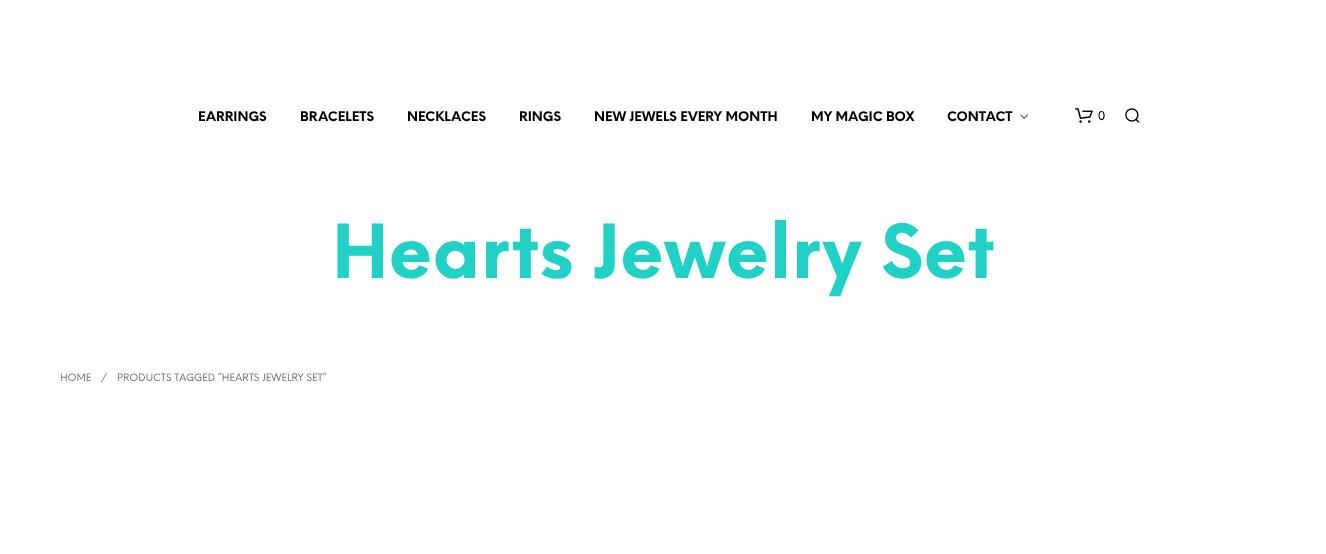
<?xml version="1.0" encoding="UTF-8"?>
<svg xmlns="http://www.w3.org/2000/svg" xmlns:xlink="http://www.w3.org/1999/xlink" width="1326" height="554">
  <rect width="100%" height="100%" fill="#ffffff" />
  <image x="1020" y="114" width="8" height="5" xlink:href="image1.png" />
  <image x="1075" y="108" width="18" height="15" xlink:href="image2.png" />
  <image x="1125" y="108" width="15" height="15" xlink:href="image3.png" />
  <text x="198" y="121" style="font-family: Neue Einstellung; font-size: 13px; font-weight: bold; fill: #000000">EARRINGS</text>
  <text x="300" y="121" style="font-family: Neue Einstellung; font-size: 13px; font-weight: bold; fill: #000000">BRACELETS</text>
  <text x="407" y="121" style="font-family: Neue Einstellung; font-size: 13px; font-weight: bold; fill: #000000">NECKLACES</text>
  <text x="519" y="121" style="font-family: Neue Einstellung; font-size: 13px; font-weight: bold; fill: #000000">RINGS</text>
  <text x="594" y="121" style="font-family: Neue Einstellung; font-size: 13px; font-weight: bold; fill: #000000">NEW JEWELS EVERY MONTH</text>
  <text x="811" y="121" style="font-family: Neue Einstellung; font-size: 13px; font-weight: bold; fill: #000000">MY MAGIC BOX</text>
  <text x="947" y="121" style="font-family: Neue Einstellung; font-size: 13px; font-weight: bold; fill: #000000">CONTACT</text>
  <text x="1098" y="120" style="font-family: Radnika; font-size: 13px; fill: #000000">0</text>
  <text x="332" y="278" style="font-family: Neue Einstellung; font-size: 72.6px; font-weight: bold; fill: #21d1c5">Hearts Jewelry Set</text>
  <text x="60" y="381" style="font-family: Neue Einstellung; font-size: 10px; fill: #737373">HOME</text>
  <text x="101" y="381" style="font-family: Neue Einstellung; font-size: 10px; fill: #737373">/</text>
  <text x="117" y="381" style="font-family: Neue Einstellung; font-size: 10px; fill: #737373">PRODUCTS TAGGED “HEARTS JEWELRY SET”</text>
</svg>
